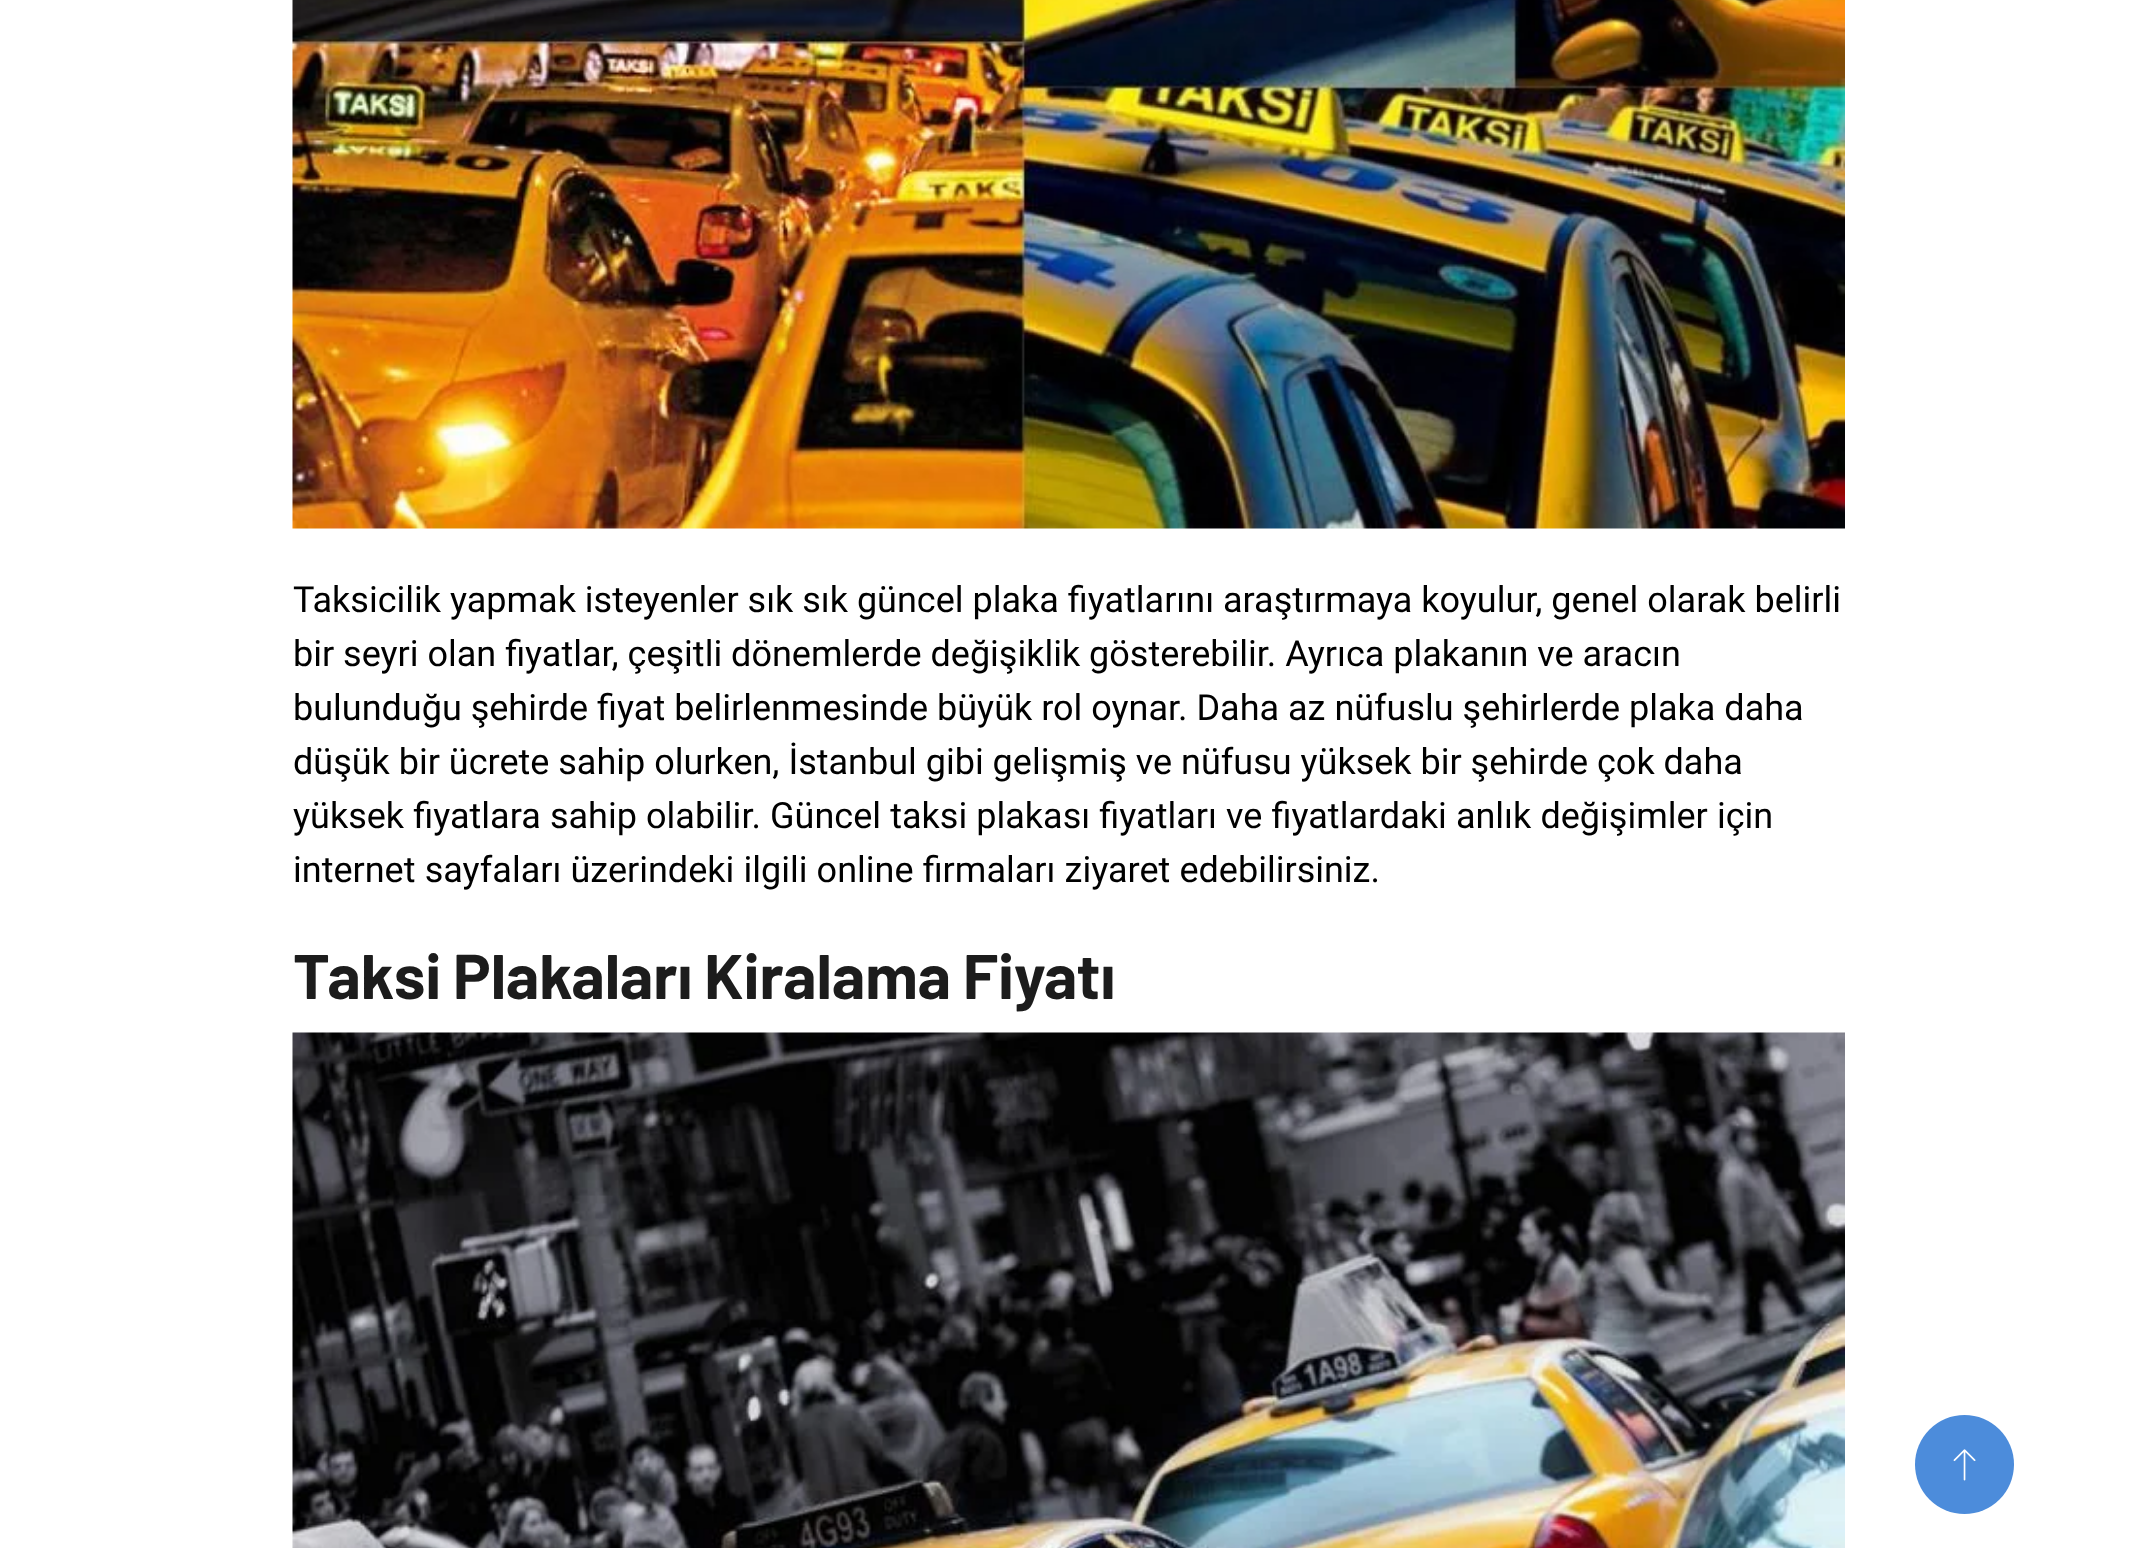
<?xml version="1.0" encoding="UTF-8"?>
<svg xmlns="http://www.w3.org/2000/svg" xmlns:xlink="http://www.w3.org/1999/xlink" width="2136" height="1548">
  <rect width="100%" height="100%" fill="#ffffff" />
  <image x="292" y="0" width="1553" height="529" xlink:href="image1.png" />
  <image x="292" y="1032" width="1553" height="516" xlink:href="image2.png" />
  <circle cx="1964.5" cy="1464.5" r="49.5" fill="#4c8cdb" />
  <image x="1953" y="1449" width="23" height="32" xlink:href="image3.png" />
  <text x="293" y="612" style="font-family: Roboto; font-size: 36px; fill: #000000">Taksicilik yapmak isteyenler sık sık güncel plaka fiyatlarını araştırmaya koyulur, genel olarak belirli</text>
  <text x="293" y="666" style="font-family: Roboto; font-size: 36px; fill: #000000">bir seyri olan fiyatlar, çeşitli dönemlerde değişiklik gösterebilir. Ayrıca plakanın ve aracın</text>
  <text x="293" y="720" style="font-family: Roboto; font-size: 36px; fill: #000000">bulunduğu şehirde fiyat belirlenmesinde büyük rol oynar. Daha az nüfuslu şehirlerde plaka daha</text>
  <text x="293" y="774" style="font-family: Roboto; font-size: 36px; fill: #000000">düşük bir ücrete sahip olurken, İstanbul gibi gelişmiş ve nüfusu yüksek bir şehirde çok daha</text>
  <text x="293" y="828" word-spacing="0.25" style="font-family: Roboto; font-size: 36px; fill: #000000">yüksek fiyatlara sahip olabilir. Güncel taksi plakası fiyatları ve fiyatlardaki anlık değişimler için</text>
  <text x="293" y="882" word-spacing="0.25" style="font-family: Roboto; font-size: 36px; fill: #000000">internet sayfaları üzerindeki ilgili online firmaları ziyaret edebilirsiniz.</text>
  <text x="293" y="999" word-spacing="-1" style="font-family: Barlow; font-size: 63px; font-weight: bold; fill: #1c1c1c">Taksi Plakaları Kiralama Fiyatı</text>
</svg>
